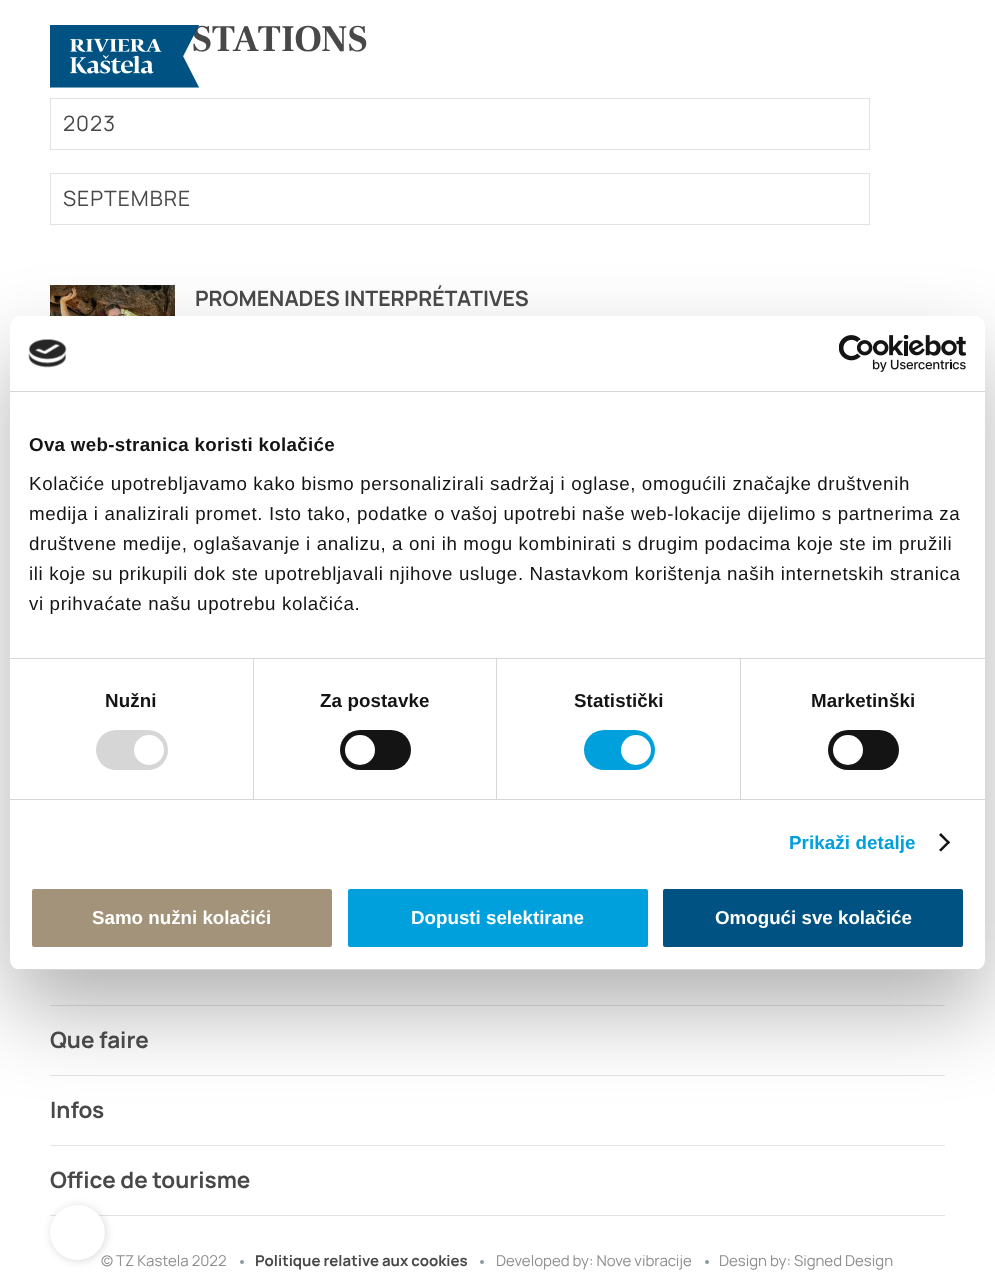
<?xml version="1.0" encoding="UTF-8"?>
<svg xmlns="http://www.w3.org/2000/svg" xmlns:xlink="http://www.w3.org/1999/xlink" width="995" height="1284">
  <defs>
    <clipPath id="clip1"><rect x="10" y="316" width="975" height="654" rx="10" /></clipPath>
  </defs>
  <rect width="100%" height="100%" fill="#ffffff" />
  <rect x="50.5" y="98.5" width="819" height="51" fill="none" stroke="#e2e2e2" />
  <rect x="50.5" y="173.5" width="819" height="51" fill="none" stroke="#e2e2e2" />
  <image x="50" y="285" width="125" height="31" xlink:href="image2.png" />
  <rect x="50" y="1005" width="895" height="1" fill="#e5e5e5" />
  <rect x="50" y="1075" width="895" height="1" fill="#e5e5e5" />
  <rect x="10" y="356" width="975" height="654" rx="10" fill="#000000" fill-opacity="0.3" filter="blur(42.5px)" />
  <rect x="10" y="316" width="975" height="654" rx="10" fill="#ffffff" />
  <rect x="10" y="391" width="975" height="1" fill="#d6d6d6" />
  <image x="28" y="339" width="39" height="29" xlink:href="image3.png" />
  <image x="839" y="335" width="127" height="37" xlink:href="image4.png" />
  <rect x="10" y="658" width="975" height="1" fill="#d6d6d6" />
  <rect x="10" y="799" width="975" height="1" fill="#d6d6d6" />
  <rect x="253" y="659" width="1" height="140" fill="#d6d6d6" />
  <rect x="96" y="730" width="72" height="40" rx="20" fill="#d6d6d6" />
  <circle cx="149" cy="750" r="15" fill="#ffffff" />
  <rect x="496" y="659" width="1" height="140" fill="#d6d6d6" />
  <rect x="340" y="730" width="71" height="40" rx="20" fill="#141414" />
  <circle cx="360" cy="750" r="15" fill="#ffffff" />
  <rect x="740" y="659" width="1" height="140" fill="#d6d6d6" />
  <rect x="584" y="730" width="71" height="40" rx="20" fill="#00a0dc" />
  <circle cx="636" cy="750" r="15" fill="#ffffff" />
  <rect x="828" y="730" width="71" height="40" rx="20" fill="#141414" />
  <circle cx="848" cy="750" r="15" fill="#ffffff" />
  <path d="M 941 833 l 9 9.5 l -1.5 1.5 l -9.5 -9 z" fill="#141414" />
  <path d="M 948.5 840.5 l 1.5 2 l -9 9 l -2 -1.5 z" fill="#141414" />
  <g clip-path="url(#clip1)">
    <rect x="10" y="969" width="975" height="1" fill="#d6d6d6" />
  </g>
  <rect x="30.5" y="887.5" width="303" height="61" rx="3.5" fill="#a3937b" stroke="#ffffff" stroke-width="3" />
  <rect x="346.5" y="887.5" width="303" height="61" rx="3.5" fill="#00a0dc" stroke="#ffffff" stroke-width="3" />
  <rect x="661.5" y="887.5" width="303" height="61" rx="3.5" fill="#005282" stroke="#ffffff" stroke-width="3" />
  <rect x="50" y="1145" width="895" height="1" fill="#e5e5e5" />
  <rect x="50" y="1215" width="895" height="1" fill="#e2e2e2" />
  <circle cx="242" cy="1262" r="2" fill="#8c9aa0" />
  <circle cx="482" cy="1262" r="2" fill="#8c9aa0" />
  <circle cx="707" cy="1262" r="2" fill="#8c9aa0" />
  <rect x="51" y="1206" width="55" height="55" rx="27.5" fill="#000000" fill-opacity="0.15" filter="blur(4px)" />
  <text x="192" y="51" style="font-family: Frank Ruhl Libre; font-size: 37.5px; font-weight: bold; fill: #484848">STATIONS</text>
  <image x="50" y="25" width="149" height="63" xlink:href="image1.png" />
  <text x="63" y="131" style="font-family: Manrope; font-size: 21.25px; letter-spacing: 1px; fill: #484848">2023</text>
  <text x="63" y="206" style="font-family: Manrope; font-size: 21.25px; letter-spacing: 1px; fill: #484848">SEPTEMBRE</text>
  <text x="195" y="306" style="font-family: Manrope; font-size: 21.25px; font-weight: bold; fill: #484848">PROMENADES INTERPRÉTATIVES</text>
  <text x="29" y="451" style="font-family: Liberation Sans; font-size: 18.75px; font-weight: bold; letter-spacing: 0.3px; fill: #141414">Ova web-stranica koristi kolačiće</text>
  <text x="29" y="490" style="font-family: Liberation Sans; font-size: 18.75px; letter-spacing: 0.62px; fill: #141414">Kolačiće upotrebljavamo kako bismo personalizirali sadržaj i oglase, omogućili značajke društvenih</text>
  <text x="29" y="520" style="font-family: Liberation Sans; font-size: 18.75px; letter-spacing: 0.62px; fill: #141414">medija i analizirali promet. Isto tako, podatke o vašoj upotrebi naše web-lokacije dijelimo s partnerima za</text>
  <text x="29" y="550" style="font-family: Liberation Sans; font-size: 18.75px; letter-spacing: 0.62px; fill: #141414">društvene medije, oglašavanje i analizu, a oni ih mogu kombinirati s drugim podacima koje ste im pružili</text>
  <text x="29" y="580" style="font-family: Liberation Sans; font-size: 18.75px; letter-spacing: 0.62px; fill: #141414">ili koje su prikupili dok ste upotrebljavali njihove usluge. Nastavkom korištenja naših internetskih stranica</text>
  <text x="29" y="610" style="font-family: Liberation Sans; font-size: 18.75px; letter-spacing: 0.62px; fill: #141414">vi prihvaćate našu upotrebu kolačića.</text>
  <text x="105" y="707" style="font-family: Liberation Sans; font-size: 18.75px; font-weight: bold; letter-spacing: 0.1px; fill: #141414">Nužni</text>
  <text x="320" y="707" style="font-family: Liberation Sans; font-size: 18.75px; font-weight: bold; letter-spacing: 0.1px; fill: #141414">Za postavke</text>
  <text x="574" y="707" style="font-family: Liberation Sans; font-size: 18.75px; font-weight: bold; letter-spacing: 0.1px; fill: #141414">Statistički</text>
  <text x="811" y="707" style="font-family: Liberation Sans; font-size: 18.75px; font-weight: bold; letter-spacing: 0.1px; fill: #141414">Marketinški</text>
  <text x="789" y="849" style="font-family: Liberation Sans; font-size: 18.75px; font-weight: bold; letter-spacing: 0.1px; fill: #00a0dc">Prikaži detalje</text>
  <text x="92" y="924" style="font-family: Liberation Sans; font-size: 18.75px; font-weight: bold; fill: #ffffff">Samo nužni kolačići</text>
  <text x="411" y="924" style="font-family: Liberation Sans; font-size: 18.75px; font-weight: bold; fill: #ffffff">Dopusti selektirane</text>
  <text x="715" y="924" style="font-family: Liberation Sans; font-size: 18.75px; font-weight: bold; fill: #ffffff">Omogući sve kolačiće</text>
  <text x="50" y="1048" style="font-family: Manrope; font-size: 22.5px; font-weight: bold; fill: #484848">Que faire</text>
  <text x="50" y="1118" style="font-family: Manrope; font-size: 22.5px; font-weight: bold; fill: #484848">Infos</text>
  <text x="50" y="1188" style="font-family: Manrope; font-size: 22.5px; font-weight: bold; fill: #484848">Office de tourisme</text>
  <text x="101" y="1266" style="font-family: Manrope; font-size: 15px; fill: #8e8e8e">© TZ Kastela 2022</text>
  <text x="255" y="1266" style="font-family: Manrope; font-size: 15px; font-weight: bold; fill: #484848">Politique relative aux cookies</text>
  <text x="496" y="1266" style="font-family: Manrope; font-size: 15px; fill: #8e8e8e">Developed by: Nove vibracije</text>
  <text x="719" y="1266" style="font-family: Manrope; font-size: 15px; fill: #8e8e8e">Design by: Signed Design</text>
  <circle cx="77.5" cy="1232.5" r="27.5" fill="#ffffff" />
</svg>
